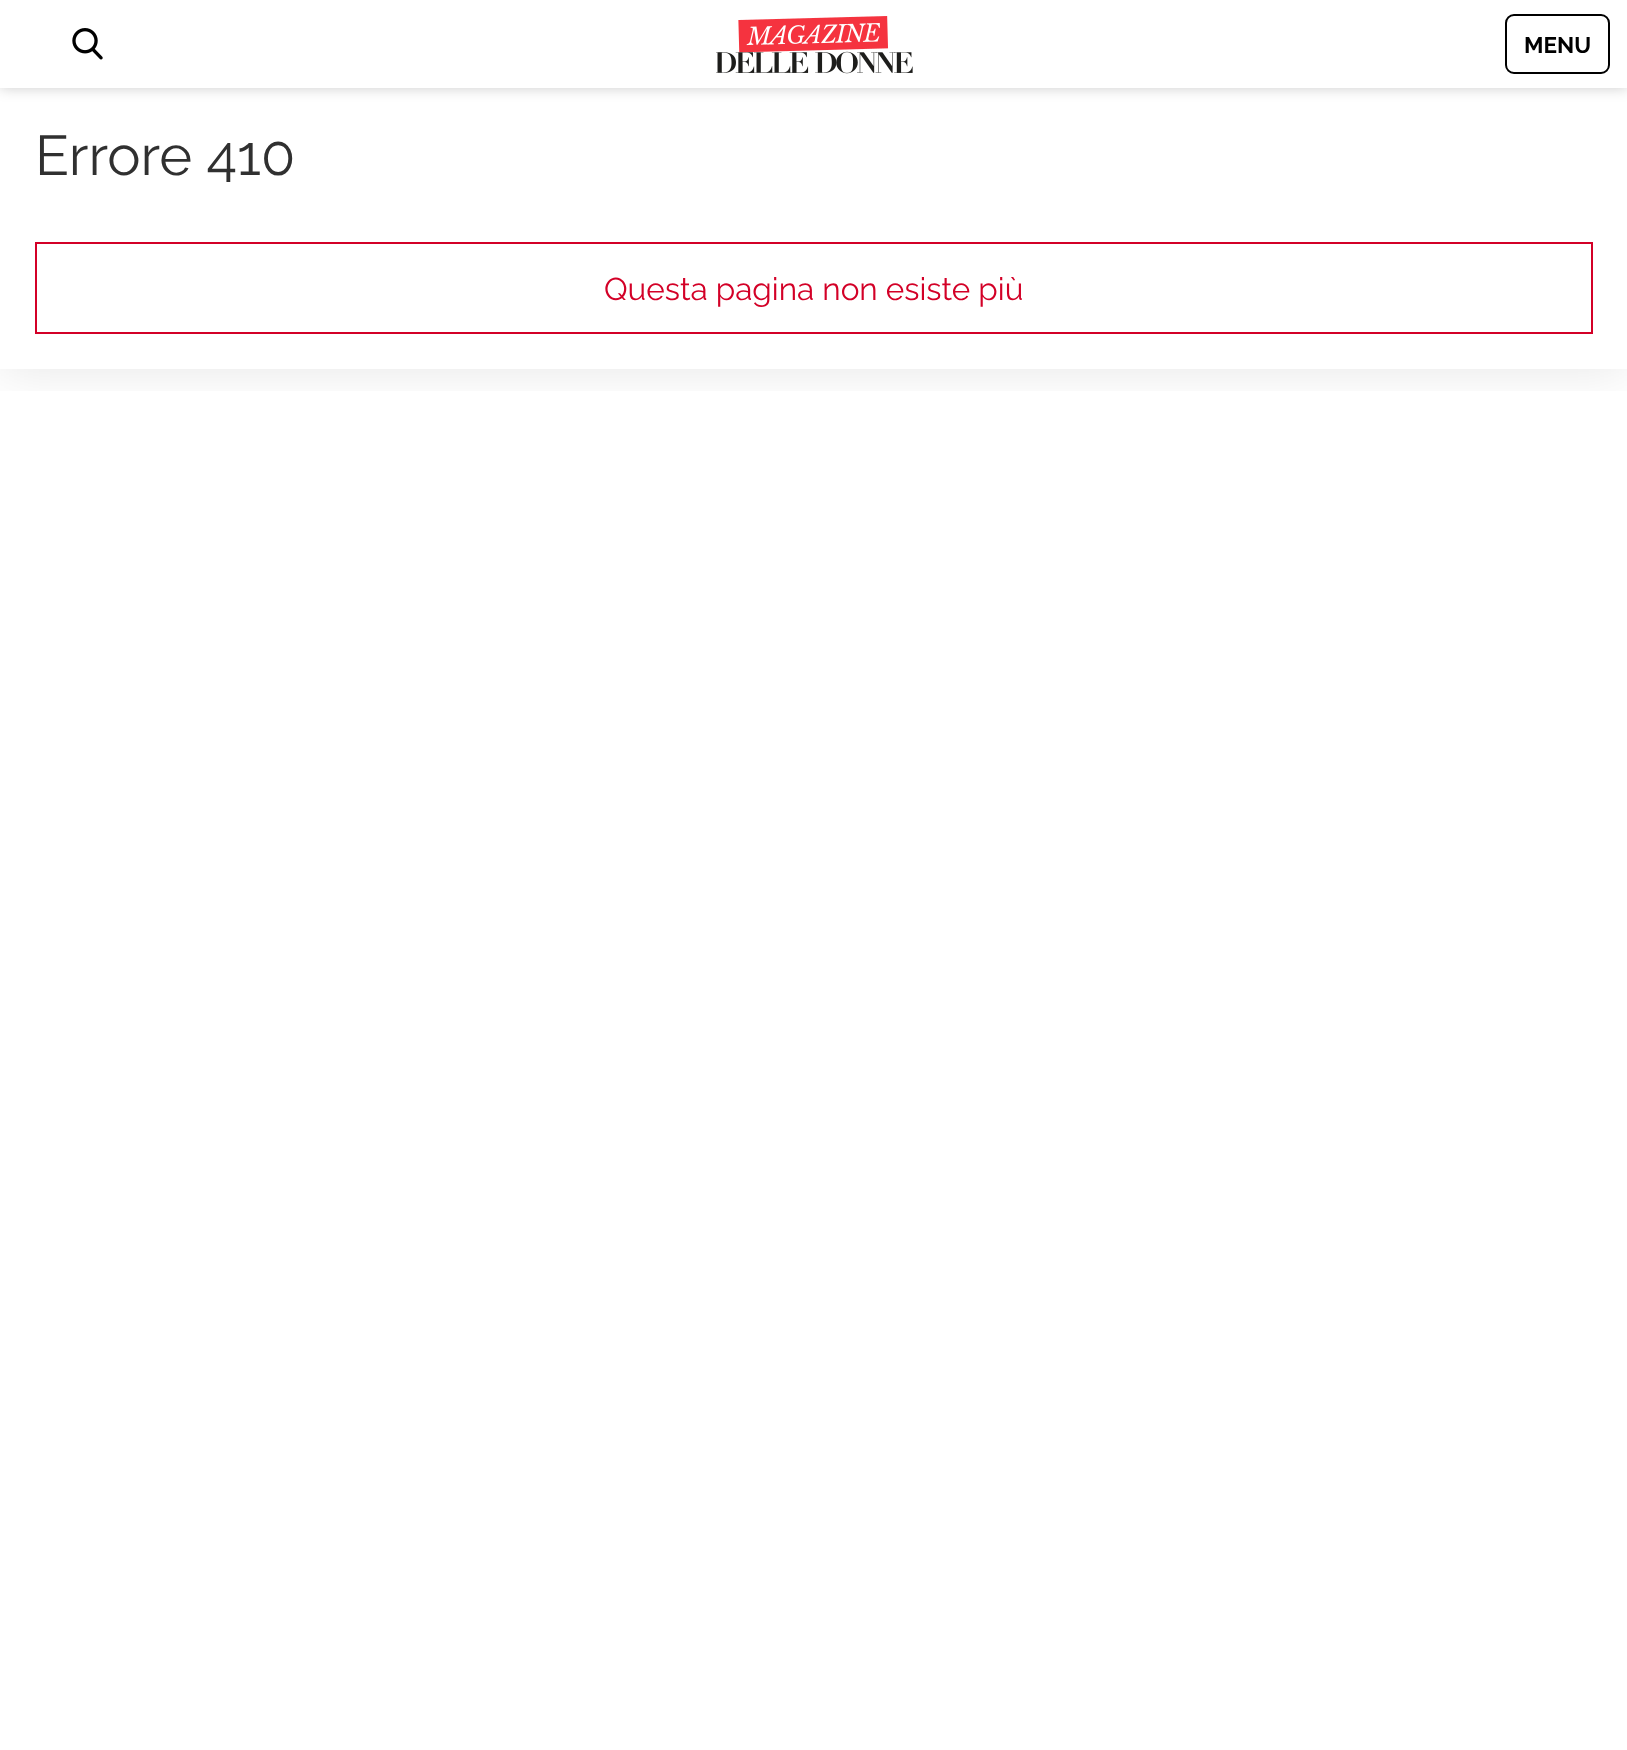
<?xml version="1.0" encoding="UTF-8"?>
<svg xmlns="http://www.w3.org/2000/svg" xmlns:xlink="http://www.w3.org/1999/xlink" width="1627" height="1750">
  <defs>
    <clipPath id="clip1"><rect x="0" y="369" width="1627" height="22" /></clipPath>
  </defs>
  <rect width="100%" height="100%" fill="#ffffff" />
  <rect width="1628" height="88" fill="#000000" fill-opacity="0.2" filter="blur(7px)" />
  <g clip-path="url(#clip1)">
    <rect y="88" width="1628" height="281" fill="#000000" fill-opacity="0.1" filter="blur(26px)" />
  </g>
  <rect width="1627" height="88" fill="#ffffff" />
  <image x="72" y="28" width="31" height="32" xlink:href="image1.png" />
  <image x="716" y="16" width="197" height="58" xlink:href="image2.png" />
  <rect x="1506" y="15" width="103" height="58" rx="8" fill="none" stroke="#000000" stroke-width="2" />
  <rect x="36" y="243" width="1556" height="90" fill="none" stroke="#d30027" stroke-width="2" />
  <text x="1524" y="53" style="font-family: Raleway; font-size: 22.5px; font-weight: bold; fill: #000000">MENU</text>
  <text x="35" y="175" style="font-family: Raleway; font-size: 56px; fill: #303030">Errore 410</text>
  <text x="604" y="300" style="font-family: Raleway; font-size: 31.5px; fill: #d30027">Questa pagina non esiste più</text>
</svg>
